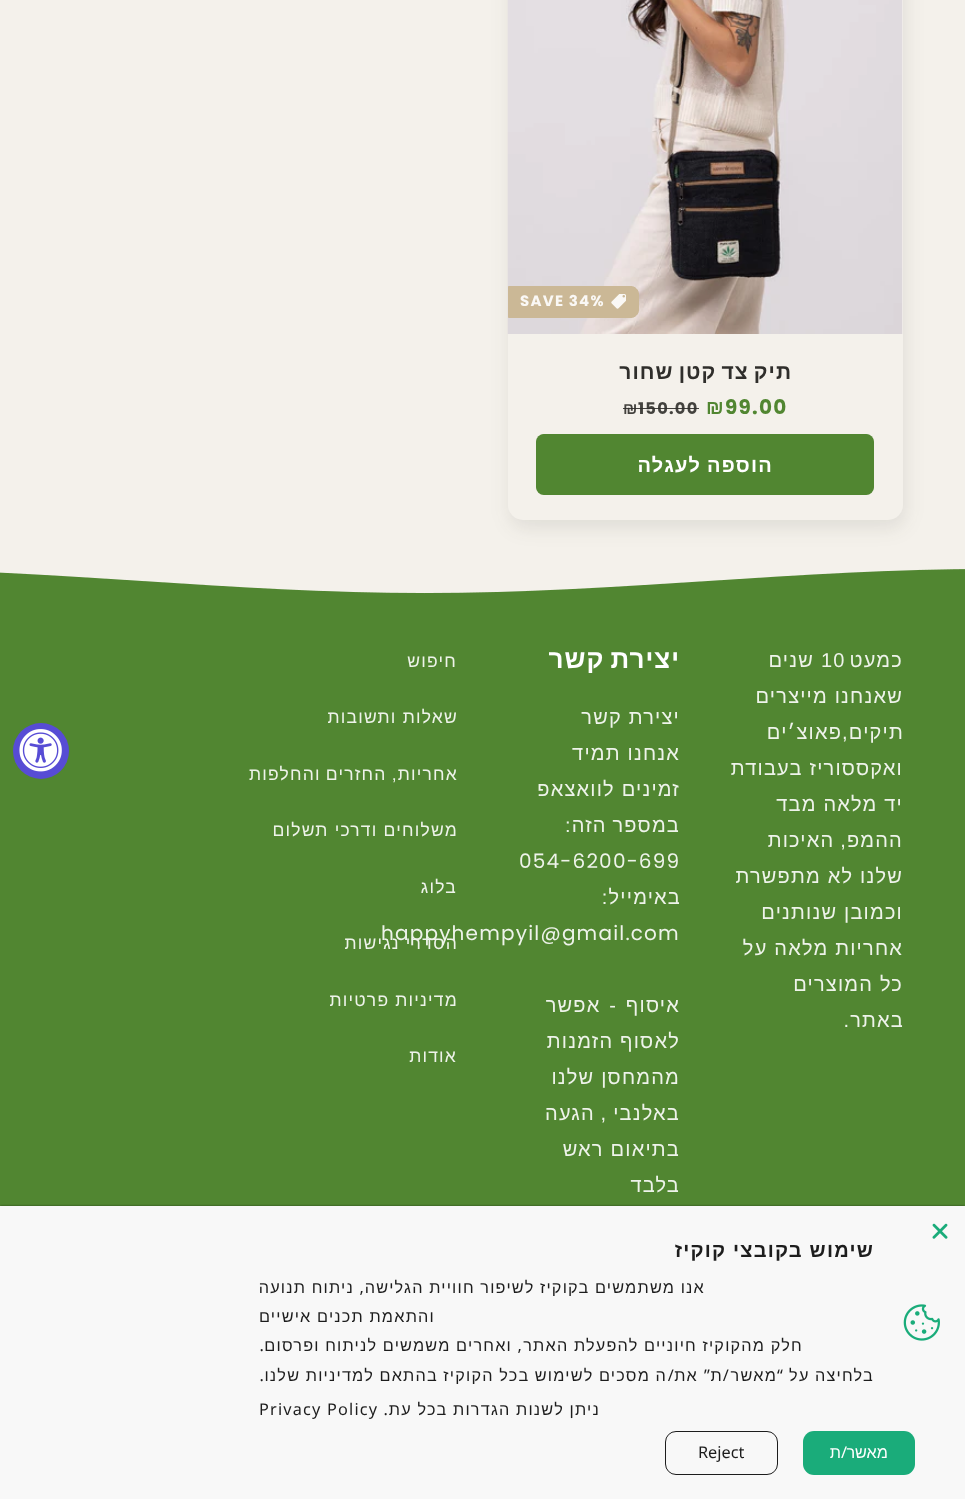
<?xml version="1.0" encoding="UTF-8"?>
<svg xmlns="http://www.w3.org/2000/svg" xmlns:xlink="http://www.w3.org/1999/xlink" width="965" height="1499">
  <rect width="100%" height="100%" fill="#f4f1eb" />
  <rect x="510" y="-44" width="395" height="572" rx="15" fill="#2f2e2b" fill-opacity="0.1" filter="blur(9.5px)" />
  <rect x="508" y="-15" width="395" height="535" rx="15" fill="#f4f1eb" />
  <image x="507" y="0" width="396" height="334" xlink:href="image1.png" />
  <path d="M 508.5 286.5 h 122.5 c 4 0 7.5 3.5 7.5 7.5 v 16 c 0 4 -3.5 7.5 -7.5 7.5 h -122.5 z" fill="#cbb896" stroke="#cbb896" />
  <image x="611" y="294" width="15" height="15" xlink:href="image2.png" />
  <rect x="537.5" y="435.5" width="335" height="58" rx="8.5" fill="none" stroke="#518631" stroke-width="3" />
  <rect x="536" y="434" width="338" height="61" rx="8" fill="#518631" />
  <image x="0" y="569" width="965" height="34" xlink:href="image3.png" />
  <rect y="603" width="965" height="603" fill="#518631" />
  <circle cx="41" cy="751" r="28" fill="#574cd5" />
  <image x="19" y="729" width="43" height="43" xlink:href="image4.png" />
  <rect y="1206" width="965" height="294" fill="#000000" fill-opacity="0.5" filter="blur(1px)" />
  <rect y="1206" width="965" height="293" fill="#f8f8f8" />
  <image x="932" y="1223" width="16" height="16" xlink:href="image5.png" />
  <image x="903" y="1304" width="37" height="37" xlink:href="image6.png" />
  <rect x="803" y="1431" width="112" height="44" rx="11" fill="#1aac7a" />
  <rect x="665.5" y="1431.5" width="112" height="43" rx="10.5" fill="none" stroke="#1d1d1d" />
  <text x="520" y="306" style="font-family: Poppins; font-size: 15px; font-weight: bold; letter-spacing: 1.25px; fill: #faf8f5">SAVE 34%</text>
  <text x="792" y="379" word-spacing="-1.5" style="font-family: Liberation Sans; font-size: 21px; font-weight: bold; letter-spacing: 1px; direction: rtl; fill: #2f2e2b">תיק צד קטן שחור</text>
  <text x="725" y="414" style="font-family: Poppins; font-size: 20px; font-weight: bold; letter-spacing: 1.25px; fill: #518631">99.00</text>
  <text x="706" y="414" style="font-family: Liberation Sans; font-size: 20px; font-weight: bold; letter-spacing: 1.25px; fill: #518631">₪</text>
  <text x="638" y="414" style="font-family: Poppins; font-size: 16.25px; font-weight: bold; letter-spacing: 1.25px; fill: #43423e">150.00</text>
  <text x="623" y="414" style="font-family: Liberation Sans; font-size: 16.25px; font-weight: bold; letter-spacing: 1.25px; fill: #43423e">₪</text>
  <rect x="623" y="408" width="76" height="1" fill="#2f2e2b" fill-opacity="0.9" />
  <text x="773" y="472" word-spacing="-1" style="font-family: Liberation Sans; font-size: 20px; font-weight: bold; letter-spacing: 1.25px; direction: rtl; fill: #ffffff">הוספה לעגלה</text>
  <text x="903" y="667" style="font-family: Liberation Sans; font-size: 20px; letter-spacing: 1.2px; direction: rtl; fill: #eef3ea">כמעט</text>
  <text x="821" y="667" style="font-family: Liberation Sans; font-size: 20px; letter-spacing: 1.2px; fill: #eef3ea">10</text>
  <text x="814" y="667" style="font-family: Liberation Sans; font-size: 20px; letter-spacing: 1.2px; direction: rtl; fill: #eef3ea">שנים</text>
  <text x="903" y="703" style="font-family: Liberation Sans; font-size: 20px; letter-spacing: 1.2px; direction: rtl; fill: #eef3ea">שאנחנו מייצרים</text>
  <text x="904" y="739" style="font-family: Liberation Sans; font-size: 20px; letter-spacing: 1.2px; direction: rtl; fill: #eef3ea">תיקים,פאוצ׳ים</text>
  <text x="903" y="775" style="font-family: Liberation Sans; font-size: 20px; letter-spacing: 1.2px; direction: rtl; fill: #eef3ea">ואקססוריז בעבודת</text>
  <text x="903" y="811" style="font-family: Liberation Sans; font-size: 20px; letter-spacing: 1.2px; direction: rtl; fill: #eef3ea">יד מלאה מבד</text>
  <text x="903" y="847" word-spacing="-1" style="font-family: Liberation Sans; font-size: 20px; letter-spacing: 1.2px; direction: rtl; fill: #eef3ea">ההמפ, האיכות</text>
  <text x="903" y="883" style="font-family: Liberation Sans; font-size: 20px; letter-spacing: 1.2px; direction: rtl; fill: #eef3ea">שלנו לא מתפשרת</text>
  <text x="903" y="919" style="font-family: Liberation Sans; font-size: 20px; letter-spacing: 1.2px; direction: rtl; fill: #eef3ea">וכמובן שנותנים</text>
  <text x="903" y="955" style="font-family: Liberation Sans; font-size: 20px; letter-spacing: 1.2px; direction: rtl; fill: #eef3ea">אחריות מלאה על</text>
  <text x="903" y="991" style="font-family: Liberation Sans; font-size: 20px; letter-spacing: 1.2px; direction: rtl; fill: #eef3ea">כל המוצרים</text>
  <text x="904" y="1027" style="font-family: Liberation Sans; font-size: 20px; letter-spacing: 1.2px; direction: rtl; fill: #eef3ea">באתר.</text>
  <text x="680" y="668" word-spacing="-2" style="font-family: Liberation Sans; font-size: 26px; font-weight: bold; letter-spacing: 1px; direction: rtl; fill: #ffffff">יצירת קשר</text>
  <text x="680" y="724" style="font-family: Liberation Sans; font-size: 20px; letter-spacing: 1.2px; direction: rtl; fill: #eef3ea">יצירת קשר</text>
  <text x="680" y="760" style="font-family: Liberation Sans; font-size: 20px; letter-spacing: 1.2px; direction: rtl; fill: #eef3ea">אנחנו תמיד</text>
  <text x="680" y="796" style="font-family: Liberation Sans; font-size: 20px; letter-spacing: 1.2px; direction: rtl; fill: #eef3ea">זמינים לוואצאפ</text>
  <text x="680" y="832" word-spacing="-1" style="font-family: Liberation Sans; font-size: 20px; letter-spacing: 1.2px; direction: rtl; fill: #eef3ea">במספר הזה:</text>
  <text x="519" y="868" style="font-family: Poppins; font-size: 20px; letter-spacing: 1.2px; fill: #eef3ea">054-6200-699</text>
  <text x="681" y="904" style="font-family: Liberation Sans; font-size: 20px; letter-spacing: 1.2px; direction: rtl; fill: #eef3ea">באימייל:</text>
  <text x="381" y="940" style="font-family: Poppins; font-size: 20px; letter-spacing: 1.2px; fill: #eef3ea">happyhempyil@gmail.com</text>
  <text x="680" y="1012" word-spacing="2" style="font-family: Liberation Sans; font-size: 20px; letter-spacing: 1.2px; direction: rtl; fill: #eef3ea">איסוף - אפשר</text>
  <text x="680" y="1048" style="font-family: Liberation Sans; font-size: 20px; letter-spacing: 1.2px; direction: rtl; fill: #eef3ea">לאסוף הזמנות</text>
  <text x="680" y="1084" style="font-family: Liberation Sans; font-size: 20px; letter-spacing: 1.2px; direction: rtl; fill: #eef3ea">מהמחסן שלנו</text>
  <text x="680" y="1120" word-spacing="-1" style="font-family: Liberation Sans; font-size: 20px; letter-spacing: 1.2px; direction: rtl; fill: #eef3ea">באלנבי , הגעה</text>
  <text x="680" y="1156" style="font-family: Liberation Sans; font-size: 20px; letter-spacing: 1.2px; direction: rtl; fill: #eef3ea">בתיאום ראש</text>
  <text x="680" y="1192" style="font-family: Liberation Sans; font-size: 20px; letter-spacing: 1.2px; direction: rtl; fill: #eef3ea">בלבד</text>
  <text x="457" y="667" style="font-family: Liberation Sans; font-size: 17.5px; letter-spacing: 1.2px; direction: rtl; fill: #eef3ea">חיפוש</text>
  <text x="458" y="723" style="font-family: Liberation Sans; font-size: 17.5px; letter-spacing: 1.2px; direction: rtl; fill: #eef3ea">שאלות ותשובות</text>
  <text x="458" y="780" word-spacing="-1" style="font-family: Liberation Sans; font-size: 17.5px; letter-spacing: 1.2px; direction: rtl; fill: #eef3ea">אחריות, החזרים והחלפות</text>
  <text x="458" y="836" style="font-family: Liberation Sans; font-size: 17.5px; letter-spacing: 1.2px; direction: rtl; fill: #eef3ea">משלוחים ודרכי תשלום</text>
  <text x="457" y="893" style="font-family: Liberation Sans; font-size: 17.5px; letter-spacing: 1.2px; direction: rtl; fill: #eef3ea">בלוג</text>
  <text x="458" y="949" style="font-family: Liberation Sans; font-size: 17.5px; letter-spacing: 1.2px; direction: rtl; fill: #eef3ea">הסדרי נגישות</text>
  <text x="458" y="1006" style="font-family: Liberation Sans; font-size: 17.5px; letter-spacing: 1.2px; direction: rtl; fill: #eef3ea">מדיניות פרטיות</text>
  <text x="457" y="1062" style="font-family: Liberation Sans; font-size: 17.5px; letter-spacing: 1.2px; direction: rtl; fill: #eef3ea">אודות</text>
  <text x="874" y="1257" style="font-family: Liberation Sans; font-size: 20px; font-weight: bold; letter-spacing: 1.2px; direction: rtl; fill: #1d1d1d">שימוש בקובצי קוקיז</text>
  <text x="705" y="1293" word-spacing="-0.25" style="font-family: Liberation Sans; font-size: 16.25px; letter-spacing: 1.2px; direction: rtl; fill: #1d1d1d">אנו משתמשים בקוקיז לשיפור חוויית הגלישה</text>
  <text x="365" y="1293" style="font-family: Noto Sans; font-size: 16.25px; letter-spacing: 1.2px; direction: rtl; fill: #1d1d1d">,</text>
  <text x="354" y="1293" word-spacing="-0.25" style="font-family: Liberation Sans; font-size: 16.25px; letter-spacing: 1.2px; direction: rtl; fill: #1d1d1d">ניתוח תנועה</text>
  <text x="435" y="1322" word-spacing="-0.25" style="font-family: Liberation Sans; font-size: 16.25px; letter-spacing: 1.2px; direction: rtl; fill: #1d1d1d">והתאמת תכנים אישיים</text>
  <text x="803" y="1351" word-spacing="-0.25" style="font-family: Liberation Sans; font-size: 16.25px; letter-spacing: 1.2px; direction: rtl; fill: #1d1d1d">חלק מהקוקיז חיוניים להפעלת האתר</text>
  <text x="523" y="1351" style="font-family: Noto Sans; font-size: 16.25px; letter-spacing: 1.2px; direction: rtl; fill: #1d1d1d">,</text>
  <text x="512" y="1351" word-spacing="-0.25" style="font-family: Liberation Sans; font-size: 16.25px; letter-spacing: 1.2px; direction: rtl; fill: #1d1d1d">ואחרים משמשים לניתוח ופרסום</text>
  <text x="265" y="1351" style="font-family: Noto Sans; font-size: 16.25px; letter-spacing: 1.2px; direction: rtl; fill: #1d1d1d">.</text>
  <text x="874" y="1381" word-spacing="-0.25" style="font-family: Liberation Sans; font-size: 16.25px; letter-spacing: 1.2px; direction: rtl; fill: #1d1d1d">בלחיצה על</text>
  <text x="784" y="1381" style="font-family: Noto Sans; font-size: 16.25px; letter-spacing: 1.2px; direction: rtl; fill: #1d1d1d">“</text>
  <text x="777" y="1381" style="font-family: Liberation Sans; font-size: 16.25px; letter-spacing: 1.2px; direction: rtl; fill: #1d1d1d">מאשר</text>
  <text x="730" y="1381" style="font-family: Noto Sans; font-size: 16.25px; letter-spacing: 1.2px; direction: rtl; fill: #1d1d1d">/</text>
  <text x="723" y="1381" style="font-family: Liberation Sans; font-size: 16.25px; letter-spacing: 1.2px; direction: rtl; fill: #1d1d1d">ת</text>
  <text x="711" y="1381" style="font-family: Noto Sans; font-size: 16.25px; letter-spacing: 1.2px; direction: rtl; fill: #1d1d1d">”</text>
  <text x="698" y="1381" style="font-family: Liberation Sans; font-size: 16.25px; letter-spacing: 1.2px; direction: rtl; fill: #1d1d1d">את</text>
  <text x="675" y="1381" style="font-family: Noto Sans; font-size: 16.25px; letter-spacing: 1.2px; direction: rtl; fill: #1d1d1d">/</text>
  <text x="667" y="1381" word-spacing="-0.25" style="font-family: Liberation Sans; font-size: 16.25px; letter-spacing: 1.2px; direction: rtl; fill: #1d1d1d">ה מסכים לשימוש בכל הקוקיז בהתאם למדיניות שלנו</text>
  <text x="265" y="1381" style="font-family: Noto Sans; font-size: 16.25px; letter-spacing: 1.2px; direction: rtl; fill: #1d1d1d">.</text>
  <text x="600" y="1415" word-spacing="-0.25" style="font-family: Liberation Sans; font-size: 16.25px; letter-spacing: 1.2px; direction: rtl; fill: #1d1d1d">ניתן לשנות הגדרות בכל עת</text>
  <text x="389" y="1415" style="font-family: Noto Sans; font-size: 16.25px; letter-spacing: 1.2px; direction: rtl; fill: #1d1d1d">.</text>
  <text x="259" y="1415" style="font-family: Noto Sans; font-size: 16.25px; letter-spacing: 1.2px; fill: #1d1d1d">Privacy Policy</text>
  <text x="847" y="1458" style="font-family: Noto Sans; font-size: 16.25px; direction: rtl; fill: #ffffff">/</text>
  <text x="888" y="1458" style="font-family: Liberation Sans; font-size: 16.25px; direction: rtl; fill: #ffffff">מאשר</text>
  <text x="841" y="1458" style="font-family: Liberation Sans; font-size: 16.25px; direction: rtl; fill: #ffffff">ת</text>
  <text x="698" y="1458" style="font-family: Noto Sans; font-size: 16.25px; fill: #1d1d1d">Reject</text>
</svg>
